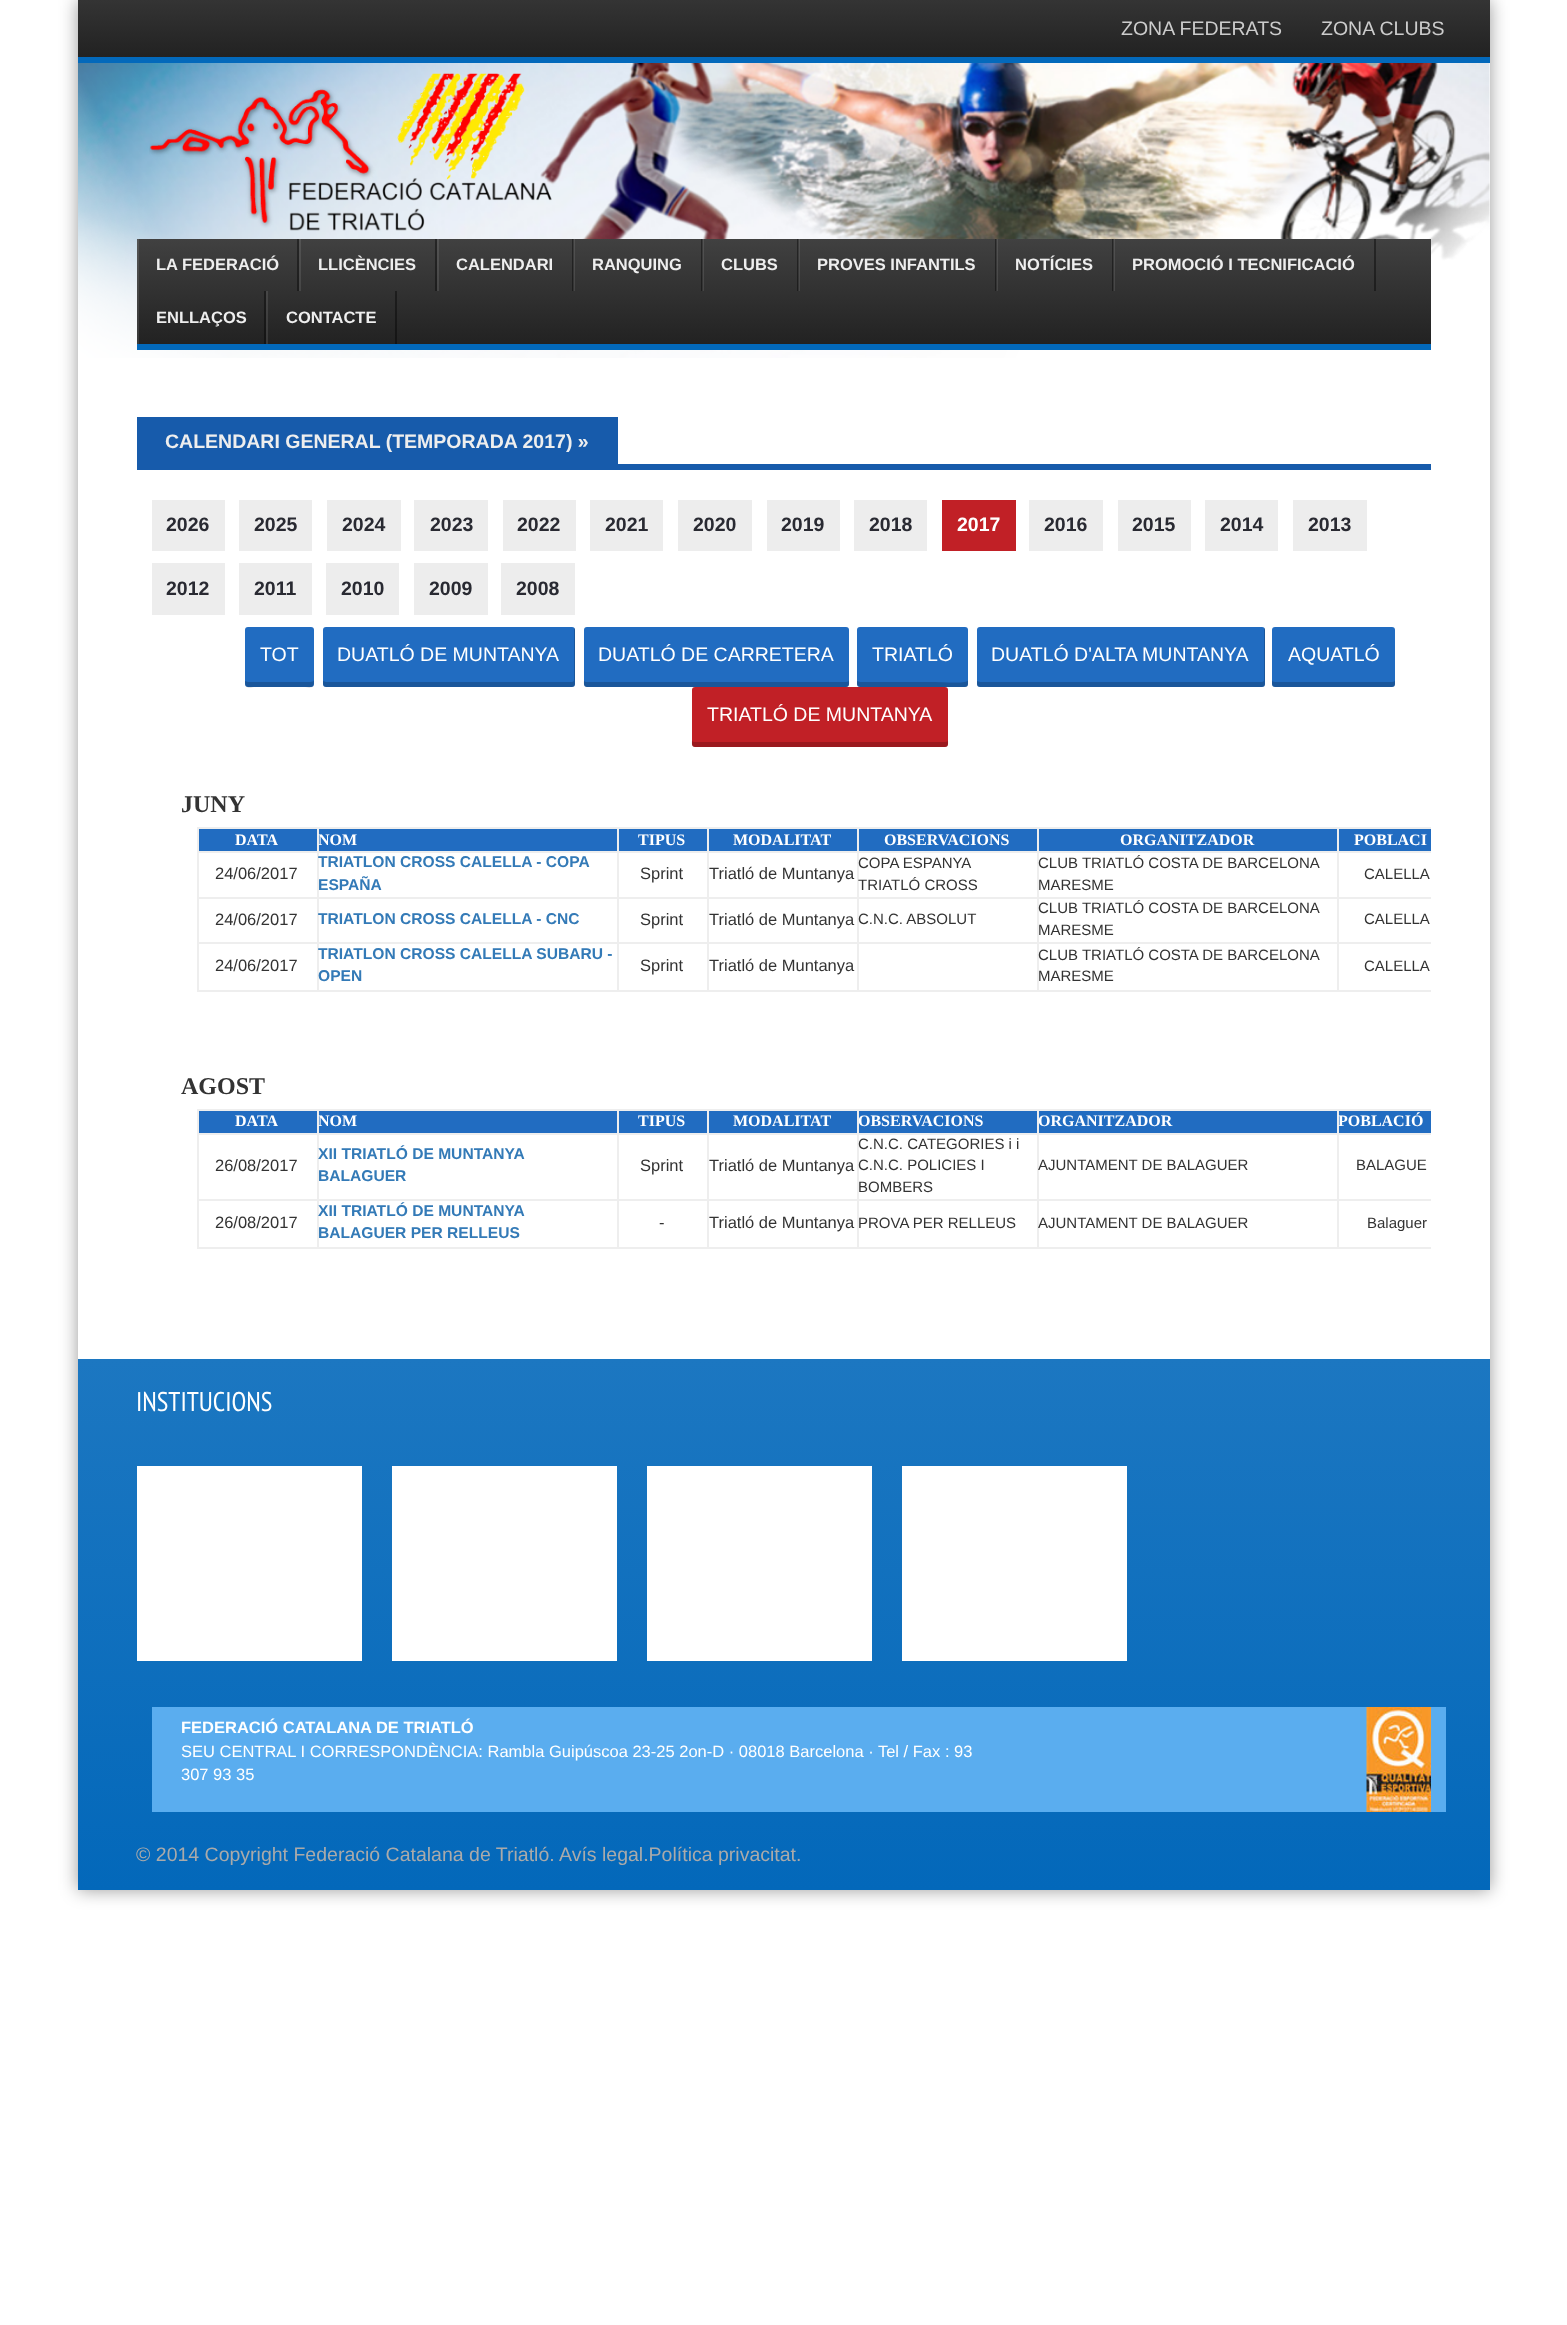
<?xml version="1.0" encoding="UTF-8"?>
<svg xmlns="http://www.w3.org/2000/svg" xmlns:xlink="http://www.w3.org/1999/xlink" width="1567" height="2325">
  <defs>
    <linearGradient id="g1" gradientUnits="userSpaceOnUse" x1="784" y1="0" x2="784" y2="57"><stop offset="0" stop-color="#343434" /><stop offset="1" stop-color="#222222" /></linearGradient>
    <linearGradient id="g2" gradientUnits="userSpaceOnUse" x1="784" y1="238" x2="784" y2="344"><stop offset="0" stop-color="#414141" /><stop offset="1" stop-color="#222222" /></linearGradient>
    <linearGradient id="g3" gradientUnits="userSpaceOnUse" x1="784" y1="1359" x2="784" y2="1890"><stop offset="0" stop-color="#1c77c1" /><stop offset="1" stop-color="#0368ba" /></linearGradient>
  </defs>
  <rect width="100%" height="100%" fill="#ffffff" />
  <rect x="78" width="1412" height="1890" fill="#000000" fill-opacity="0.4" filter="blur(9px)" />
  <rect x="78" y="63" width="1412" height="1296" fill="#ffffff" />
  <rect x="78" width="1412" height="57" fill="url(#g1)" />
  <rect x="78" y="57" width="1412" height="6" fill="#0369bb" />
  <image x="78" y="63" width="1412" height="295" xlink:href="image1.png" />
  <image x="149" y="73" width="403" height="158" xlink:href="image2.png" />
  <rect x="137" y="239" width="1294" height="105" fill="url(#g2)" />
  <rect x="137" y="344" width="1294" height="6" fill="#0369bb" />
  <rect x="297" y="239" width="2" height="52" fill="#000000" fill-opacity="0.4" />
  <rect x="137" y="239" width="2" height="52" fill="#ffffff" fill-opacity="0.1" />
  <rect x="435" y="239" width="2" height="52" fill="#000000" fill-opacity="0.4" />
  <rect x="299" y="239" width="2" height="52" fill="#ffffff" fill-opacity="0.1" />
  <rect x="572" y="239" width="2" height="52" fill="#000000" fill-opacity="0.4" />
  <rect x="437" y="239" width="2" height="52" fill="#ffffff" fill-opacity="0.1" />
  <rect x="701" y="239" width="2" height="52" fill="#000000" fill-opacity="0.4" />
  <rect x="573" y="239" width="2" height="52" fill="#ffffff" fill-opacity="0.1" />
  <rect x="797" y="239" width="2" height="52" fill="#000000" fill-opacity="0.4" />
  <rect x="702" y="239" width="2" height="52" fill="#ffffff" fill-opacity="0.1" />
  <rect x="995" y="239" width="2" height="52" fill="#000000" fill-opacity="0.4" />
  <rect x="798" y="239" width="2" height="52" fill="#ffffff" fill-opacity="0.1" />
  <rect x="1112" y="239" width="2" height="52" fill="#000000" fill-opacity="0.4" />
  <rect x="996" y="239" width="2" height="52" fill="#ffffff" fill-opacity="0.1" />
  <rect x="1374" y="239" width="2" height="52" fill="#000000" fill-opacity="0.4" />
  <rect x="1113" y="239" width="2" height="52" fill="#ffffff" fill-opacity="0.1" />
  <rect x="264" y="291" width="2" height="53" fill="#000000" fill-opacity="0.4" />
  <rect x="137" y="291" width="2" height="53" fill="#ffffff" fill-opacity="0.1" />
  <rect x="395" y="291" width="2" height="53" fill="#000000" fill-opacity="0.4" />
  <rect x="266" y="291" width="2" height="53" fill="#ffffff" fill-opacity="0.1" />
  <rect x="137" y="464" width="1294" height="6" fill="#175bab" />
  <rect x="137" y="417" width="481" height="47" fill="#175bab" />
  <rect x="152" y="500" width="73" height="51" fill="#ededed" />
  <rect x="239" y="500" width="73" height="51" fill="#ededed" />
  <rect x="327" y="500" width="74" height="51" fill="#ededed" />
  <rect x="414" y="500" width="74" height="51" fill="#ededed" />
  <rect x="503" y="500" width="73" height="51" fill="#ededed" />
  <rect x="590" y="500" width="73" height="51" fill="#ededed" />
  <rect x="678" y="500" width="74" height="51" fill="#ededed" />
  <rect x="767" y="500" width="73" height="51" fill="#ededed" />
  <rect x="854" y="500" width="73" height="51" fill="#ededed" />
  <rect x="942" y="500" width="74" height="51" fill="#c12026" />
  <rect x="1029" y="500" width="74" height="51" fill="#ededed" />
  <rect x="1118" y="500" width="73" height="51" fill="#ededed" />
  <rect x="1205" y="500" width="73" height="51" fill="#ededed" />
  <rect x="1293" y="500" width="74" height="51" fill="#ededed" />
  <rect x="152" y="563" width="73" height="52" fill="#ededed" />
  <rect x="239" y="563" width="73" height="52" fill="#ededed" />
  <rect x="326" y="563" width="73" height="52" fill="#ededed" />
  <rect x="414" y="563" width="74" height="52" fill="#ededed" />
  <rect x="501" y="563" width="74" height="52" fill="#ededed" />
  <rect x="245" y="627" width="69" height="60" rx="3" fill="#216cc1" />
  <path d="M 245 681 c 0 9 4 6 13 6 h 42 c 11 0 14 3 14 -7 c 0 1 -2 2 -4 2 h -62 z" fill="#000000" fill-opacity="0.2" />
  <rect x="323" y="627" width="252" height="60" rx="3" fill="#216cc1" />
  <path d="M 323 681 v 3 c 0 2 1 3 3 3 h 246 c 2 0 3 -1 3 -3 v -54 c 0 -1 0 -2 -1 -2 v 52 c 0 1 -1 2 -2 2 h -246 z" fill="#000000" fill-opacity="0.2" />
  <rect x="584" y="627" width="265" height="60" rx="3" fill="#216cc1" />
  <path d="M 584 680 c 0 2 -1 6 2 7 h 260 c 4 0 3 -5 3 -7 c 0 1 -1 2 -3 2 h -260 c -1 0 -2 -1 -2 -2 z" fill="#000000" fill-opacity="0.2" />
  <rect x="857" y="627" width="111" height="60" rx="3" fill="#216cc1" />
  <path d="M 857 681 v 3 c 0 2 1 3 3 3 h 105 c 2 0 3 -1 3 -3 v -4 c 0 4 -22 2 -39 2 h -69 z" fill="#000000" fill-opacity="0.2" />
  <rect x="977" y="627" width="288" height="60" rx="3" fill="#216cc1" />
  <path d="M 977 681 v 3 c 0 2 1 3 3 3 h 282 c 2 0 3 -1 3 -3 v -54 c 0 -1 0 -2 -1 -2 v 52 c 0 1 -1 2 -2 2 h -282 z" fill="#000000" fill-opacity="0.2" />
  <rect x="1272" y="627" width="123" height="60" rx="3" fill="#216cc1" />
  <path d="M 1272 680 v 4 c 0 2 1 3 3 3 h 117 c 2 0 3 -1 3 -3 v -4 c 0 1 -1 2 -3 2 h -117 c -2 0 -3 -1 -3 -2 z" fill="#000000" fill-opacity="0.2" />
  <rect x="692" y="687" width="256" height="60" rx="3" fill="#c12026" />
  <path d="M 692 740 c 0 2 -1 6 2 7 h 251 c 4 0 3 -5 3 -7 c 0 1 -1 2 -3 2 h -251 c -1 0 -2 -1 -2 -2 z" fill="#000000" fill-opacity="0.2" />
  <rect x="197" y="827" width="1234" height="2" fill="#eeeeee" />
  <rect x="197" y="990" width="1234" height="2" fill="#eeeeee" />
  <rect x="197" y="827" width="2" height="165" fill="#eeeeee" />
  <rect x="199" y="829" width="118" height="22" fill="#216cc1" />
  <rect x="319" y="829" width="298" height="22" fill="#216cc1" />
  <rect x="1337" y="851" width="94" height="2" fill="#eeeeee" />
  <rect x="1337" y="897" width="94" height="2" fill="#eeeeee" />
  <rect x="1337" y="942" width="94" height="2" fill="#eeeeee" />
  <rect x="1337" y="942" width="2" height="50" fill="#eeeeee" />
  <rect x="1037" y="942" width="301" height="2" fill="#eeeeee" />
  <rect x="1337" y="897" width="2" height="47" fill="#eeeeee" />
  <rect x="1037" y="897" width="301" height="2" fill="#eeeeee" />
  <rect x="1337" y="851" width="2" height="48" fill="#eeeeee" />
  <rect x="1037" y="851" width="301" height="2" fill="#eeeeee" />
  <rect x="1037" y="942" width="2" height="50" fill="#eeeeee" />
  <rect x="857" y="942" width="181" height="2" fill="#eeeeee" />
  <rect x="1037" y="897" width="2" height="47" fill="#eeeeee" />
  <rect x="857" y="897" width="181" height="2" fill="#eeeeee" />
  <rect x="1037" y="851" width="2" height="48" fill="#eeeeee" />
  <rect x="857" y="851" width="181" height="2" fill="#eeeeee" />
  <rect x="857" y="942" width="2" height="50" fill="#eeeeee" />
  <rect x="707" y="942" width="151" height="2" fill="#eeeeee" />
  <rect x="857" y="897" width="2" height="47" fill="#eeeeee" />
  <rect x="707" y="897" width="151" height="2" fill="#eeeeee" />
  <rect x="857" y="851" width="2" height="48" fill="#eeeeee" />
  <rect x="707" y="851" width="151" height="2" fill="#eeeeee" />
  <rect x="707" y="942" width="2" height="50" fill="#eeeeee" />
  <rect x="617" y="942" width="91" height="2" fill="#eeeeee" />
  <rect x="707" y="897" width="2" height="47" fill="#eeeeee" />
  <rect x="617" y="897" width="91" height="2" fill="#eeeeee" />
  <rect x="707" y="851" width="2" height="48" fill="#eeeeee" />
  <rect x="617" y="851" width="91" height="2" fill="#eeeeee" />
  <rect x="617" y="942" width="2" height="50" fill="#eeeeee" />
  <rect x="317" y="942" width="301" height="2" fill="#eeeeee" />
  <rect x="617" y="897" width="2" height="47" fill="#eeeeee" />
  <rect x="317" y="897" width="301" height="2" fill="#eeeeee" />
  <rect x="617" y="851" width="2" height="48" fill="#eeeeee" />
  <rect x="317" y="851" width="301" height="2" fill="#eeeeee" />
  <rect x="317" y="942" width="2" height="50" fill="#eeeeee" />
  <rect x="197" y="942" width="121" height="2" fill="#eeeeee" />
  <rect x="317" y="897" width="2" height="47" fill="#eeeeee" />
  <rect x="197" y="897" width="121" height="2" fill="#eeeeee" />
  <rect x="317" y="851" width="2" height="48" fill="#eeeeee" />
  <rect x="197" y="851" width="121" height="2" fill="#eeeeee" />
  <rect x="317" y="827" width="2" height="25" fill="#eeeeee" />
  <rect x="619" y="829" width="88" height="22" fill="#216cc1" />
  <rect x="617" y="827" width="2" height="25" fill="#eeeeee" />
  <rect x="709" y="829" width="148" height="22" fill="#216cc1" />
  <rect x="707" y="827" width="2" height="25" fill="#eeeeee" />
  <rect x="859" y="829" width="178" height="22" fill="#216cc1" />
  <rect x="857" y="827" width="2" height="25" fill="#eeeeee" />
  <rect x="1039" y="829" width="298" height="22" fill="#216cc1" />
  <rect x="1037" y="827" width="2" height="25" fill="#eeeeee" />
  <rect x="1339" y="829" width="92" height="22" fill="#216cc1" />
  <rect x="1337" y="827" width="2" height="25" fill="#eeeeee" />
  <rect x="197" y="1109" width="1234" height="2" fill="#eeeeee" />
  <rect x="197" y="1247" width="1234" height="2" fill="#eeeeee" />
  <rect x="197" y="1109" width="2" height="139" fill="#eeeeee" />
  <rect x="199" y="1111" width="118" height="22" fill="#216cc1" />
  <rect x="319" y="1111" width="298" height="22" fill="#216cc1" />
  <rect x="1337" y="1133" width="94" height="2" fill="#eeeeee" />
  <rect x="1337" y="1199" width="94" height="2" fill="#eeeeee" />
  <rect x="1337" y="1199" width="2" height="49" fill="#eeeeee" />
  <rect x="1037" y="1199" width="301" height="2" fill="#eeeeee" />
  <rect x="1337" y="1133" width="2" height="67" fill="#eeeeee" />
  <rect x="1037" y="1133" width="301" height="2" fill="#eeeeee" />
  <rect x="1037" y="1199" width="2" height="49" fill="#eeeeee" />
  <rect x="857" y="1199" width="181" height="2" fill="#eeeeee" />
  <rect x="1037" y="1133" width="2" height="67" fill="#eeeeee" />
  <rect x="857" y="1133" width="181" height="2" fill="#eeeeee" />
  <rect x="857" y="1199" width="2" height="49" fill="#eeeeee" />
  <rect x="707" y="1199" width="151" height="2" fill="#eeeeee" />
  <rect x="857" y="1133" width="2" height="67" fill="#eeeeee" />
  <rect x="707" y="1133" width="151" height="2" fill="#eeeeee" />
  <rect x="707" y="1199" width="2" height="49" fill="#eeeeee" />
  <rect x="617" y="1199" width="91" height="2" fill="#eeeeee" />
  <rect x="707" y="1133" width="2" height="67" fill="#eeeeee" />
  <rect x="617" y="1133" width="91" height="2" fill="#eeeeee" />
  <rect x="617" y="1199" width="2" height="49" fill="#eeeeee" />
  <rect x="317" y="1199" width="301" height="2" fill="#eeeeee" />
  <rect x="617" y="1133" width="2" height="67" fill="#eeeeee" />
  <rect x="317" y="1133" width="301" height="2" fill="#eeeeee" />
  <rect x="317" y="1199" width="2" height="49" fill="#eeeeee" />
  <rect x="197" y="1199" width="121" height="2" fill="#eeeeee" />
  <rect x="317" y="1133" width="2" height="67" fill="#eeeeee" />
  <rect x="197" y="1133" width="121" height="2" fill="#eeeeee" />
  <rect x="317" y="1109" width="2" height="25" fill="#eeeeee" />
  <rect x="619" y="1111" width="88" height="22" fill="#216cc1" />
  <rect x="617" y="1109" width="2" height="25" fill="#eeeeee" />
  <rect x="709" y="1111" width="148" height="22" fill="#216cc1" />
  <rect x="707" y="1109" width="2" height="25" fill="#eeeeee" />
  <rect x="859" y="1111" width="178" height="22" fill="#216cc1" />
  <rect x="857" y="1109" width="2" height="25" fill="#eeeeee" />
  <rect x="1039" y="1111" width="298" height="22" fill="#216cc1" />
  <rect x="1037" y="1109" width="2" height="25" fill="#eeeeee" />
  <rect x="1339" y="1111" width="92" height="22" fill="#216cc1" />
  <rect x="1337" y="1109" width="2" height="25" fill="#eeeeee" />
  <rect x="78" y="1359" width="1412" height="531" fill="url(#g3)" />
  <rect x="137" y="1466" width="225" height="195" fill="#ffffff" />
  <rect x="392" y="1466" width="225" height="195" fill="#ffffff" />
  <rect x="647" y="1466" width="225" height="195" fill="#ffffff" />
  <rect x="902" y="1466" width="225" height="195" fill="#ffffff" />
  <rect x="152" y="1707" width="1294" height="105" fill="#5aadef" />
  <image x="1366" y="1707" width="65" height="105" xlink:href="image3.png" />
  <text x="1121" y="35" style="font-family: Liberation Sans; font-size: 19.5px; fill: #cccccc">ZONA FEDERATS</text>
  <text x="1321" y="35" style="font-family: Liberation Sans; font-size: 19.5px; fill: #cccccc">ZONA CLUBS</text>
  <text x="156" y="270" style="font-family: Liberation Sans; font-size: 16.5px; font-weight: bold; fill: #eeeeee">LA FEDERACIÓ</text>
  <text x="318" y="270" style="font-family: Liberation Sans; font-size: 16.5px; font-weight: bold; fill: #eeeeee">LLICÈNCIES</text>
  <text x="456" y="270" style="font-family: Liberation Sans; font-size: 16.5px; font-weight: bold; fill: #eeeeee">CALENDARI</text>
  <text x="592" y="270" style="font-family: Liberation Sans; font-size: 16.5px; font-weight: bold; fill: #eeeeee">RANQUING</text>
  <text x="721" y="270" style="font-family: Liberation Sans; font-size: 16.5px; font-weight: bold; fill: #eeeeee">CLUBS</text>
  <text x="817" y="270" style="font-family: Liberation Sans; font-size: 16.5px; font-weight: bold; fill: #eeeeee">PROVES INFANTILS</text>
  <text x="1015" y="270" style="font-family: Liberation Sans; font-size: 16.5px; font-weight: bold; fill: #eeeeee">NOTÍCIES</text>
  <text x="1132" y="270" style="font-family: Liberation Sans; font-size: 16.5px; font-weight: bold; fill: #eeeeee">PROMOCIÓ I TECNIFICACIÓ</text>
  <text x="156" y="323" style="font-family: Liberation Sans; font-size: 16.5px; font-weight: bold; fill: #eeeeee">ENLLAÇOS</text>
  <text x="286" y="323" style="font-family: Liberation Sans; font-size: 16.5px; font-weight: bold; fill: #eeeeee">CONTACTE</text>
  <text x="165" y="448" style="font-family: Liberation Sans; font-size: 19.5px; font-weight: bold; fill: #eeeeee">CALENDARI GENERAL (TEMPORADA 2017) »</text>
  <text x="166" y="531" style="font-family: Liberation Sans; font-size: 19.5px; font-weight: bold; fill: #292a32">2026</text>
  <text x="254" y="531" style="font-family: Liberation Sans; font-size: 19.5px; font-weight: bold; fill: #292a32">2025</text>
  <text x="342" y="531" style="font-family: Liberation Sans; font-size: 19.5px; font-weight: bold; fill: #292a32">2024</text>
  <text x="430" y="531" style="font-family: Liberation Sans; font-size: 19.5px; font-weight: bold; fill: #292a32">2023</text>
  <text x="517" y="531" style="font-family: Liberation Sans; font-size: 19.5px; font-weight: bold; fill: #292a32">2022</text>
  <text x="605" y="531" style="font-family: Liberation Sans; font-size: 19.5px; font-weight: bold; fill: #292a32">2021</text>
  <text x="693" y="531" style="font-family: Liberation Sans; font-size: 19.5px; font-weight: bold; fill: #292a32">2020</text>
  <text x="781" y="531" style="font-family: Liberation Sans; font-size: 19.5px; font-weight: bold; fill: #292a32">2019</text>
  <text x="869" y="531" style="font-family: Liberation Sans; font-size: 19.5px; font-weight: bold; fill: #292a32">2018</text>
  <text x="957" y="531" style="font-family: Liberation Sans; font-size: 19.5px; font-weight: bold; fill: #ffffff">2017</text>
  <text x="1044" y="531" style="font-family: Liberation Sans; font-size: 19.5px; font-weight: bold; fill: #292a32">2016</text>
  <text x="1132" y="531" style="font-family: Liberation Sans; font-size: 19.5px; font-weight: bold; fill: #292a32">2015</text>
  <text x="1220" y="531" style="font-family: Liberation Sans; font-size: 19.5px; font-weight: bold; fill: #292a32">2014</text>
  <text x="1308" y="531" style="font-family: Liberation Sans; font-size: 19.5px; font-weight: bold; fill: #292a32">2013</text>
  <text x="166" y="595" style="font-family: Liberation Sans; font-size: 19.5px; font-weight: bold; fill: #292a32">2012</text>
  <text x="254" y="595" style="font-family: Liberation Sans; font-size: 19.5px; font-weight: bold; fill: #292a32">2011</text>
  <text x="341" y="595" style="font-family: Liberation Sans; font-size: 19.5px; font-weight: bold; fill: #292a32">2010</text>
  <text x="429" y="595" style="font-family: Liberation Sans; font-size: 19.5px; font-weight: bold; fill: #292a32">2009</text>
  <text x="516" y="595" style="font-family: Liberation Sans; font-size: 19.5px; font-weight: bold; fill: #292a32">2008</text>
  <text x="260" y="661" style="font-family: Liberation Sans; font-size: 19.5px; fill: #ffffff">TOT</text>
  <text x="337" y="661" style="font-family: Liberation Sans; font-size: 19.5px; fill: #ffffff">DUATLÓ DE MUNTANYA</text>
  <text x="598" y="661" style="font-family: Liberation Sans; font-size: 19.5px; fill: #ffffff">DUATLÓ DE CARRETERA</text>
  <text x="872" y="661" style="font-family: Liberation Sans; font-size: 19.5px; fill: #ffffff">TRIATLÓ</text>
  <text x="991" y="661" style="font-family: Liberation Sans; font-size: 19.5px; fill: #ffffff">DUATLÓ D'ALTA MUNTANYA</text>
  <text x="1288" y="661" style="font-family: Liberation Sans; font-size: 19.5px; fill: #ffffff">AQUATLÓ</text>
  <text x="707" y="721" style="font-family: Liberation Sans; font-size: 19.5px; fill: #ffffff">TRIATLÓ DE MUNTANYA</text>
  <text x="181" y="812" style="font-family: Liberation Serif; font-size: 24px; font-weight: bold; fill: #333333">JUNY</text>
  <text x="235" y="845" style="font-family: Liberation Serif; font-size: 16px; font-weight: bold; fill: #ffffff">DATA</text>
  <text x="318" y="845" style="font-family: Liberation Serif; font-size: 16px; font-weight: bold; fill: #ffffff">NOM</text>
  <text x="638" y="845" style="font-family: Liberation Serif; font-size: 16px; font-weight: bold; fill: #ffffff">TIPUS</text>
  <text x="733" y="845" style="font-family: Liberation Serif; font-size: 16px; font-weight: bold; fill: #ffffff">MODALITAT</text>
  <text x="884" y="845" style="font-family: Liberation Serif; font-size: 16px; font-weight: bold; fill: #ffffff">OBSERVACIONS</text>
  <text x="1120" y="845" style="font-family: Liberation Serif; font-size: 16px; font-weight: bold; fill: #ffffff">ORGANITZADOR</text>
  <text x="1354" y="845" style="font-family: Liberation Serif; font-size: 16px; font-weight: bold; fill: #ffffff">POBLACI</text>
  <text x="215" y="879" style="font-family: Liberation Sans; font-size: 16.5px; fill: #333333">24/06/2017</text>
  <text x="318" y="867" style="font-family: Liberation Sans; font-size: 15.6px; font-weight: bold; fill: #337ab7">TRIATLON CROSS CALELLA - COPA</text>
  <text x="318" y="890" style="font-family: Liberation Sans; font-size: 15.6px; font-weight: bold; fill: #337ab7">ESPAÑA</text>
  <text x="640" y="879" style="font-family: Liberation Sans; font-size: 16.5px; fill: #333333">Sprint</text>
  <text x="709" y="879" style="font-family: Liberation Sans; font-size: 16.5px; fill: #333333">Triatló de Muntanya</text>
  <text x="858" y="868" style="font-family: Liberation Sans; font-size: 15px; fill: #333333">COPA ESPANYA</text>
  <text x="858" y="890" style="font-family: Liberation Sans; font-size: 15px; fill: #333333">TRIATLÓ CROSS</text>
  <text x="1038" y="868" style="font-family: Liberation Sans; font-size: 15px; fill: #333333">CLUB TRIATLÓ COSTA DE BARCELONA</text>
  <text x="1038" y="890" style="font-family: Liberation Sans; font-size: 15px; fill: #333333">MARESME</text>
  <text x="1364" y="879" style="font-family: Liberation Sans; font-size: 15px; fill: #333333">CALELLA</text>
  <text x="215" y="925" style="font-family: Liberation Sans; font-size: 16.5px; fill: #333333">24/06/2017</text>
  <text x="318" y="924" style="font-family: Liberation Sans; font-size: 15.6px; font-weight: bold; fill: #337ab7">TRIATLON CROSS CALELLA - CNC</text>
  <text x="640" y="925" style="font-family: Liberation Sans; font-size: 16.5px; fill: #333333">Sprint</text>
  <text x="709" y="925" style="font-family: Liberation Sans; font-size: 16.5px; fill: #333333">Triatló de Muntanya</text>
  <text x="858" y="924" style="font-family: Liberation Sans; font-size: 15px; fill: #333333">C.N.C. ABSOLUT</text>
  <text x="1038" y="913" style="font-family: Liberation Sans; font-size: 15px; fill: #333333">CLUB TRIATLÓ COSTA DE BARCELONA</text>
  <text x="1038" y="935" style="font-family: Liberation Sans; font-size: 15px; fill: #333333">MARESME</text>
  <text x="1364" y="924" style="font-family: Liberation Sans; font-size: 15px; fill: #333333">CALELLA</text>
  <text x="215" y="971" style="font-family: Liberation Sans; font-size: 16.5px; fill: #333333">24/06/2017</text>
  <text x="318" y="959" style="font-family: Liberation Sans; font-size: 15.6px; font-weight: bold; fill: #337ab7">TRIATLON CROSS CALELLA SUBARU -</text>
  <text x="318" y="981" style="font-family: Liberation Sans; font-size: 15.6px; font-weight: bold; fill: #337ab7">OPEN</text>
  <text x="640" y="971" style="font-family: Liberation Sans; font-size: 16.5px; fill: #333333">Sprint</text>
  <text x="709" y="971" style="font-family: Liberation Sans; font-size: 16.5px; fill: #333333">Triatló de Muntanya</text>
  <text x="1038" y="960" style="font-family: Liberation Sans; font-size: 15px; fill: #333333">CLUB TRIATLÓ COSTA DE BARCELONA</text>
  <text x="1038" y="981" style="font-family: Liberation Sans; font-size: 15px; fill: #333333">MARESME</text>
  <text x="1364" y="971" style="font-family: Liberation Sans; font-size: 15px; fill: #333333">CALELLA</text>
  <text x="181" y="1094" style="font-family: Liberation Serif; font-size: 24px; font-weight: bold; fill: #333333">AGOST</text>
  <text x="235" y="1126" style="font-family: Liberation Serif; font-size: 16px; font-weight: bold; fill: #ffffff">DATA</text>
  <text x="318" y="1126" style="font-family: Liberation Serif; font-size: 16px; font-weight: bold; fill: #ffffff">NOM</text>
  <text x="638" y="1126" style="font-family: Liberation Serif; font-size: 16px; font-weight: bold; fill: #ffffff">TIPUS</text>
  <text x="733" y="1126" style="font-family: Liberation Serif; font-size: 16px; font-weight: bold; fill: #ffffff">MODALITAT</text>
  <text x="858" y="1126" style="font-family: Liberation Serif; font-size: 16px; font-weight: bold; fill: #ffffff">OBSERVACIONS</text>
  <text x="1038" y="1126" style="font-family: Liberation Serif; font-size: 16px; font-weight: bold; fill: #ffffff">ORGANITZADOR</text>
  <text x="1338" y="1126" style="font-family: Liberation Serif; font-size: 16px; font-weight: bold; fill: #ffffff">POBLACIÓ</text>
  <text x="215" y="1171" style="font-family: Liberation Sans; font-size: 16.5px; fill: #333333">26/08/2017</text>
  <text x="318" y="1159" style="font-family: Liberation Sans; font-size: 15.6px; font-weight: bold; fill: #337ab7">XII TRIATLÓ DE MUNTANYA</text>
  <text x="318" y="1181" style="font-family: Liberation Sans; font-size: 15.6px; font-weight: bold; fill: #337ab7">BALAGUER</text>
  <text x="640" y="1171" style="font-family: Liberation Sans; font-size: 16.5px; fill: #333333">Sprint</text>
  <text x="709" y="1171" style="font-family: Liberation Sans; font-size: 16.5px; fill: #333333">Triatló de Muntanya</text>
  <text x="858" y="1149" style="font-family: Liberation Sans; font-size: 15px; fill: #333333">C.N.C. CATEGORIES i i</text>
  <text x="858" y="1170" style="font-family: Liberation Sans; font-size: 15px; fill: #333333">C.N.C. POLICIES I</text>
  <text x="858" y="1192" style="font-family: Liberation Sans; font-size: 15px; fill: #333333">BOMBERS</text>
  <text x="1038" y="1170" style="font-family: Liberation Sans; font-size: 15px; fill: #333333">AJUNTAMENT DE BALAGUER</text>
  <text x="1356" y="1170" style="font-family: Liberation Sans; font-size: 15px; fill: #333333">BALAGUE</text>
  <text x="215" y="1228" style="font-family: Liberation Sans; font-size: 16.5px; fill: #333333">26/08/2017</text>
  <text x="318" y="1216" style="font-family: Liberation Sans; font-size: 15.6px; font-weight: bold; fill: #337ab7">XII TRIATLÓ DE MUNTANYA</text>
  <text x="318" y="1238" style="font-family: Liberation Sans; font-size: 15.6px; font-weight: bold; fill: #337ab7">BALAGUER PER RELLEUS</text>
  <text x="659" y="1228" style="font-family: Liberation Sans; font-size: 16.5px; fill: #333333">-</text>
  <text x="709" y="1228" style="font-family: Liberation Sans; font-size: 16.5px; fill: #333333">Triatló de Muntanya</text>
  <text x="858" y="1228" style="font-family: Liberation Sans; font-size: 15px; fill: #333333">PROVA PER RELLEUS</text>
  <text x="1038" y="1228" style="font-family: Liberation Sans; font-size: 15px; fill: #333333">AJUNTAMENT DE BALAGUER</text>
  <text x="1367" y="1228" style="font-family: Liberation Sans; font-size: 15px; fill: #333333">Balaguer</text>
  <text x="136" y="1411" style="font-family: PT Sans Narrow; font-size: 27px; fill: #ffffff">INSTITUCIONS</text>
  <text x="181" y="1733" style="font-family: Liberation Sans; font-size: 16.5px; font-weight: bold; fill: #ffffff">FEDERACIÓ CATALANA DE TRIATLÓ</text>
  <text x="181" y="1757" style="font-family: Liberation Sans; font-size: 16.5px; fill: #ffffff">SEU CENTRAL I CORRESPONDÈNCIA: Rambla Guipúscoa 23-25 2on-D · 08018 Barcelona · Tel / Fax : 93</text>
  <text x="181" y="1780" style="font-family: Liberation Sans; font-size: 16.5px; fill: #ffffff">307 93 35</text>
  <text x="136" y="1861" style="font-family: Liberation Sans; font-size: 19.5px; fill: #aaaaaa">© 2014 Copyright Federació Catalana de Triatló.</text>
  <text x="559" y="1861" style="font-family: Liberation Sans; font-size: 19.5px; fill: #aaaaaa">Avís legal.Política privacitat.</text>
</svg>
